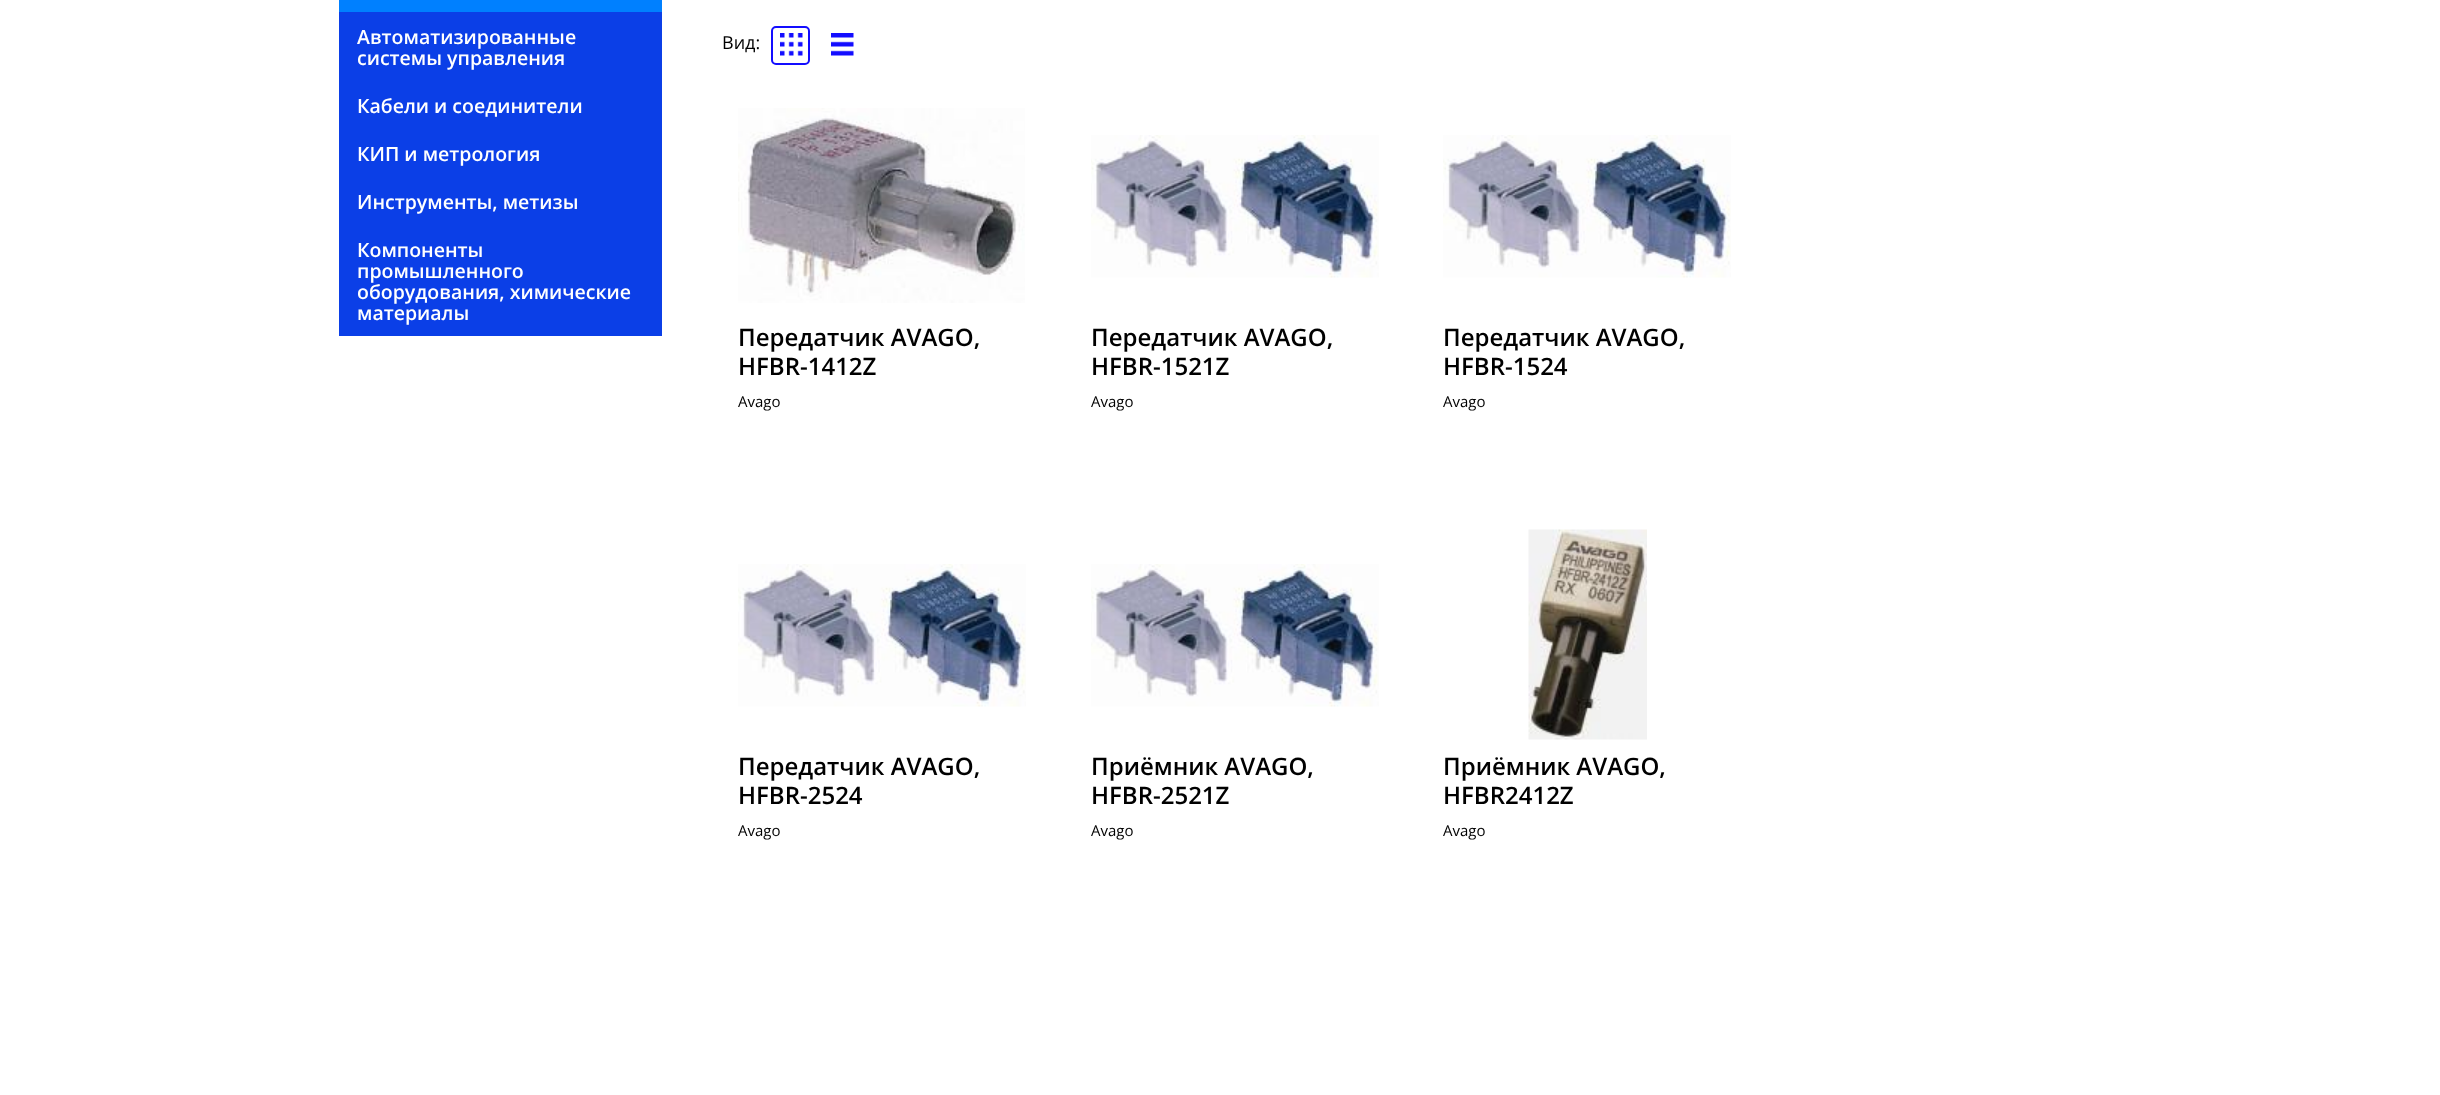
<?xml version="1.0" encoding="UTF-8"?>
<svg xmlns="http://www.w3.org/2000/svg" xmlns:xlink="http://www.w3.org/1999/xlink" width="2440" height="1095">
  <rect width="100%" height="100%" fill="#ffffff" />
  <rect x="339" width="323" height="12" fill="#0080ff" />
  <rect x="339" y="12" width="323" height="324" fill="#0b3fe7" />
  <image x="780" y="33" width="23" height="23" xlink:href="image1.png" />
  <rect x="772" y="27" width="37" height="37" rx="4" fill="none" stroke="#130dff" stroke-width="2" />
  <image x="831" y="33" width="23" height="23" xlink:href="image2.png" />
  <image x="738" y="108" width="287" height="195" xlink:href="image3.png" />
  <image x="1091" y="135" width="288" height="143" xlink:href="image4.png" />
  <image x="1443" y="135" width="288" height="143" xlink:href="image5.png" />
  <image x="738" y="564" width="288" height="143" xlink:href="image5.png" />
  <image x="1091" y="564" width="288" height="143" xlink:href="image4.png" />
  <image x="1528" y="529" width="119" height="211" xlink:href="image6.png" />
  <text x="357" y="44" style="font-family: Open Sans; font-size: 19.5px; font-weight: 600; fill: #ffffff">Автоматизированные</text>
  <text x="357" y="65" style="font-family: Open Sans; font-size: 19.5px; font-weight: 600; fill: #ffffff">системы управления</text>
  <text x="357" y="113" style="font-family: Open Sans; font-size: 19.5px; font-weight: 600; fill: #ffffff">Кабели и соединители</text>
  <text x="357" y="161" style="font-family: Open Sans; font-size: 19.5px; font-weight: 600; fill: #ffffff">КИП и метрология</text>
  <text x="357" y="209" style="font-family: Open Sans; font-size: 19.5px; font-weight: 600; fill: #ffffff">Инструменты, метизы</text>
  <text x="357" y="257" style="font-family: Open Sans; font-size: 19.5px; font-weight: 600; fill: #ffffff">Компоненты</text>
  <text x="357" y="278" style="font-family: Open Sans; font-size: 19.5px; font-weight: 600; fill: #ffffff">промышленного</text>
  <text x="357" y="299" style="font-family: Open Sans; font-size: 19.5px; font-weight: 600; fill: #ffffff">оборудования, химические</text>
  <text x="357" y="320" style="font-family: Open Sans; font-size: 19.5px; font-weight: 600; fill: #ffffff">материалы</text>
  <text x="722" y="49" style="font-family: Open Sans; font-size: 18px; fill: #000000">Вид:</text>
  <text x="738" y="346" style="font-family: Open Sans; font-size: 24px; font-weight: 600; fill: #000000">Передатчик AVAGO,</text>
  <text x="738" y="375" style="font-family: Open Sans; font-size: 24px; font-weight: 600; fill: #000000">HFBR-1412Z</text>
  <text x="738" y="407" style="font-family: Open Sans; font-size: 15px; fill: #000000">Avago</text>
  <text x="1091" y="346" style="font-family: Open Sans; font-size: 24px; font-weight: 600; fill: #000000">Передатчик AVAGO,</text>
  <text x="1091" y="375" style="font-family: Open Sans; font-size: 24px; font-weight: 600; fill: #000000">HFBR-1521Z</text>
  <text x="1091" y="407" style="font-family: Open Sans; font-size: 15px; fill: #000000">Avago</text>
  <text x="1443" y="346" style="font-family: Open Sans; font-size: 24px; font-weight: 600; fill: #000000">Передатчик AVAGO,</text>
  <text x="1443" y="375" style="font-family: Open Sans; font-size: 24px; font-weight: 600; fill: #000000">HFBR-1524</text>
  <text x="1443" y="407" style="font-family: Open Sans; font-size: 15px; fill: #000000">Avago</text>
  <text x="738" y="775" style="font-family: Open Sans; font-size: 24px; font-weight: 600; fill: #000000">Передатчик AVAGO,</text>
  <text x="738" y="804" style="font-family: Open Sans; font-size: 24px; font-weight: 600; fill: #000000">HFBR-2524</text>
  <text x="738" y="836" style="font-family: Open Sans; font-size: 15px; fill: #000000">Avago</text>
  <text x="1091" y="775" style="font-family: Open Sans; font-size: 24px; font-weight: 600; fill: #000000">Приёмник AVAGO,</text>
  <text x="1091" y="804" style="font-family: Open Sans; font-size: 24px; font-weight: 600; fill: #000000">HFBR-2521Z</text>
  <text x="1091" y="836" style="font-family: Open Sans; font-size: 15px; fill: #000000">Avago</text>
  <text x="1443" y="775" style="font-family: Open Sans; font-size: 24px; font-weight: 600; fill: #000000">Приёмник AVAGO,</text>
  <text x="1443" y="804" style="font-family: Open Sans; font-size: 24px; font-weight: 600; fill: #000000">HFBR2412Z</text>
  <text x="1443" y="836" style="font-family: Open Sans; font-size: 15px; fill: #000000">Avago</text>
</svg>
